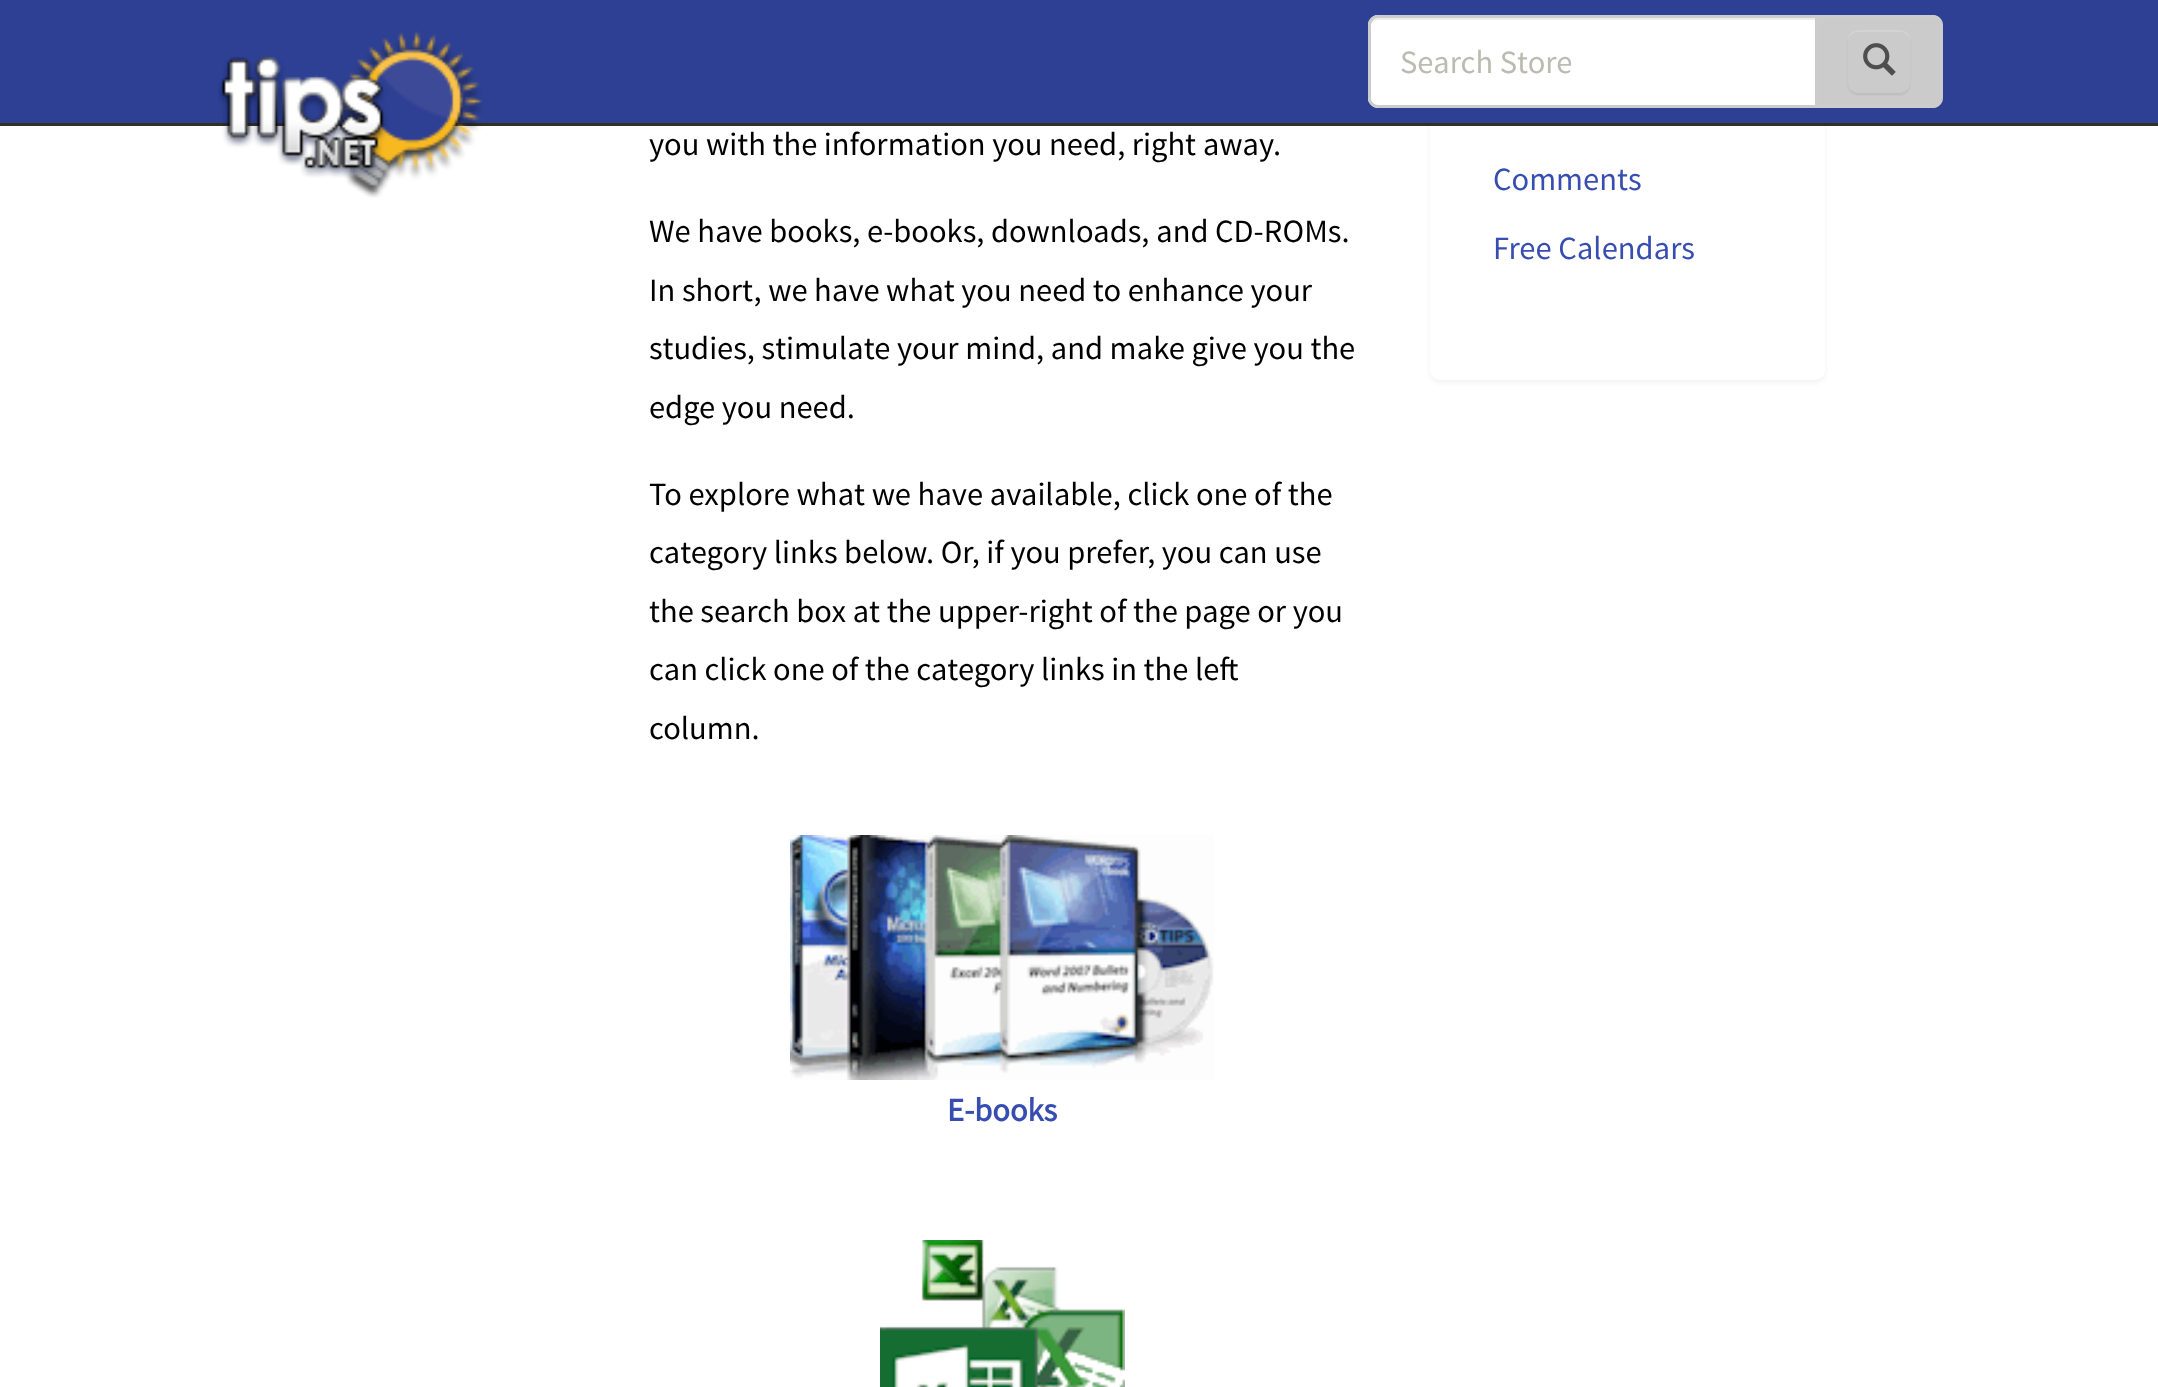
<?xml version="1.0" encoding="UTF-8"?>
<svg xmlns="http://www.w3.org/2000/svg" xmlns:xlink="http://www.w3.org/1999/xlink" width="2158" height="1387">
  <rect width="100%" height="100%" fill="#ffffff" />
  <rect x="1430" y="-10" width="395" height="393" rx="10" fill="#000000" fill-opacity="0.05" filter="blur(2.5px)" />
  <rect x="1430" y="-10" width="395" height="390" rx="10" fill="#ffffff" />
  <rect width="2158" height="123" fill="#2e4093" />
  <rect y="123" width="2158" height="3" fill="#313121" />
  <image x="218" y="31" width="265" height="167" xlink:href="image1.png" />
  <path d="M 1378 15 h 440 v 93 h -440 c -5.5 0 -10 -4.5 -10 -10 v -73 c 0 -5.5 4.5 -10 10 -10 z" fill="#ffffff" />
  <path d="M 1378 20 h 437 v -2 h -437 c -6 0 -8 5 -8 10 c 0 -5 3 -8 8 -8 z" fill="#ececec" />
  <path d="M 1378 16.5 h 438.5 v 90 h -438.5 c -4.5 0 -8.5 -4 -8.5 -8.5 v -73 c 0 -4.5 4 -8.5 8.5 -8.5 z" fill="none" stroke="#cccccc" stroke-width="3" />
  <path d="M 1818 15 h 115 c 5.5 0 10 4.5 10 10 v 73 c 0 5.5 -4.5 10 -10 10 h -115 z" fill="#cbcbcb" />
  <path d="M 1818 15 h 114 c 6 0 10 4 10 10 v 73 c 0 5 -4 10 -10 10 h -114 z m 0 3 h 114 c 5 0 8 3 8 7 v 73 c 0 4 -3 7 -8 7 h -114 z" fill="#cccccc" fill-rule="evenodd" />
  <rect x="1848" y="33" width="62" height="62" rx="10" fill="#000000" fill-opacity="0.07" filter="blur(1px)" />
  <rect x="1848" y="30" width="62" height="63" rx="10" fill="#cbcbcb" />
  <path d="M 1858 32 h 42 c 6 0 10 5 10 10 c 0 -12 -7 -12 -17 -12 h -28 c -10 0 -17 0 -17 12 c 0 -5 4 -10 10 -10 z" fill="#d3d3d3" />
  <image x="1863" y="43" width="33" height="33" xlink:href="image2.png" />
  <image x="790" y="835" width="424" height="245" xlink:href="image3.png" />
  <image x="880" y="1240" width="245" height="147" xlink:href="image4.png" />
  <text x="1400" y="73" style="font-family: Source Sans Pro; font-size: 32.5px; fill: #bbbbb1">Search Store</text>
  <text x="649" y="155" style="font-family: Source Sans Pro; font-size: 32.5px; fill: #000000">you with the information you need, right away.</text>
  <text x="649" y="242" style="font-family: Source Sans Pro; font-size: 32.5px; fill: #000000">We have books, e-books, downloads, and CD-ROMs.</text>
  <text x="649" y="301" style="font-family: Source Sans Pro; font-size: 32.5px; fill: #000000">In short, we have what you need to enhance your</text>
  <text x="649" y="359" style="font-family: Source Sans Pro; font-size: 32.5px; fill: #000000">studies, stimulate your mind, and make give you the</text>
  <text x="649" y="418" style="font-family: Source Sans Pro; font-size: 32.5px; fill: #000000">edge you need.</text>
  <text x="649" y="505" style="font-family: Source Sans Pro; font-size: 32.5px; fill: #000000">To explore what we have available, click one of the</text>
  <text x="649" y="563" style="font-family: Source Sans Pro; font-size: 32.5px; fill: #000000">category links below. Or, if you prefer, you can use</text>
  <text x="649" y="622" style="font-family: Source Sans Pro; font-size: 32.5px; fill: #000000">the search box at the upper-right of the page or you</text>
  <text x="649" y="680" style="font-family: Source Sans Pro; font-size: 32.5px; fill: #000000">can click one of the category links in the left</text>
  <text x="649" y="739" style="font-family: Source Sans Pro; font-size: 32.5px; fill: #000000">column.</text>
  <text x="947" y="1121" style="font-family: Source Sans Pro; font-size: 32.5px; font-weight: bold; fill: #374db1">E-books</text>
  <text x="1493" y="190" style="font-family: Source Sans Pro; font-size: 32.5px; fill: #374db1">Comments</text>
  <text x="1493" y="259" style="font-family: Source Sans Pro; font-size: 32.5px; fill: #374db1">Free Calendars</text>
</svg>
